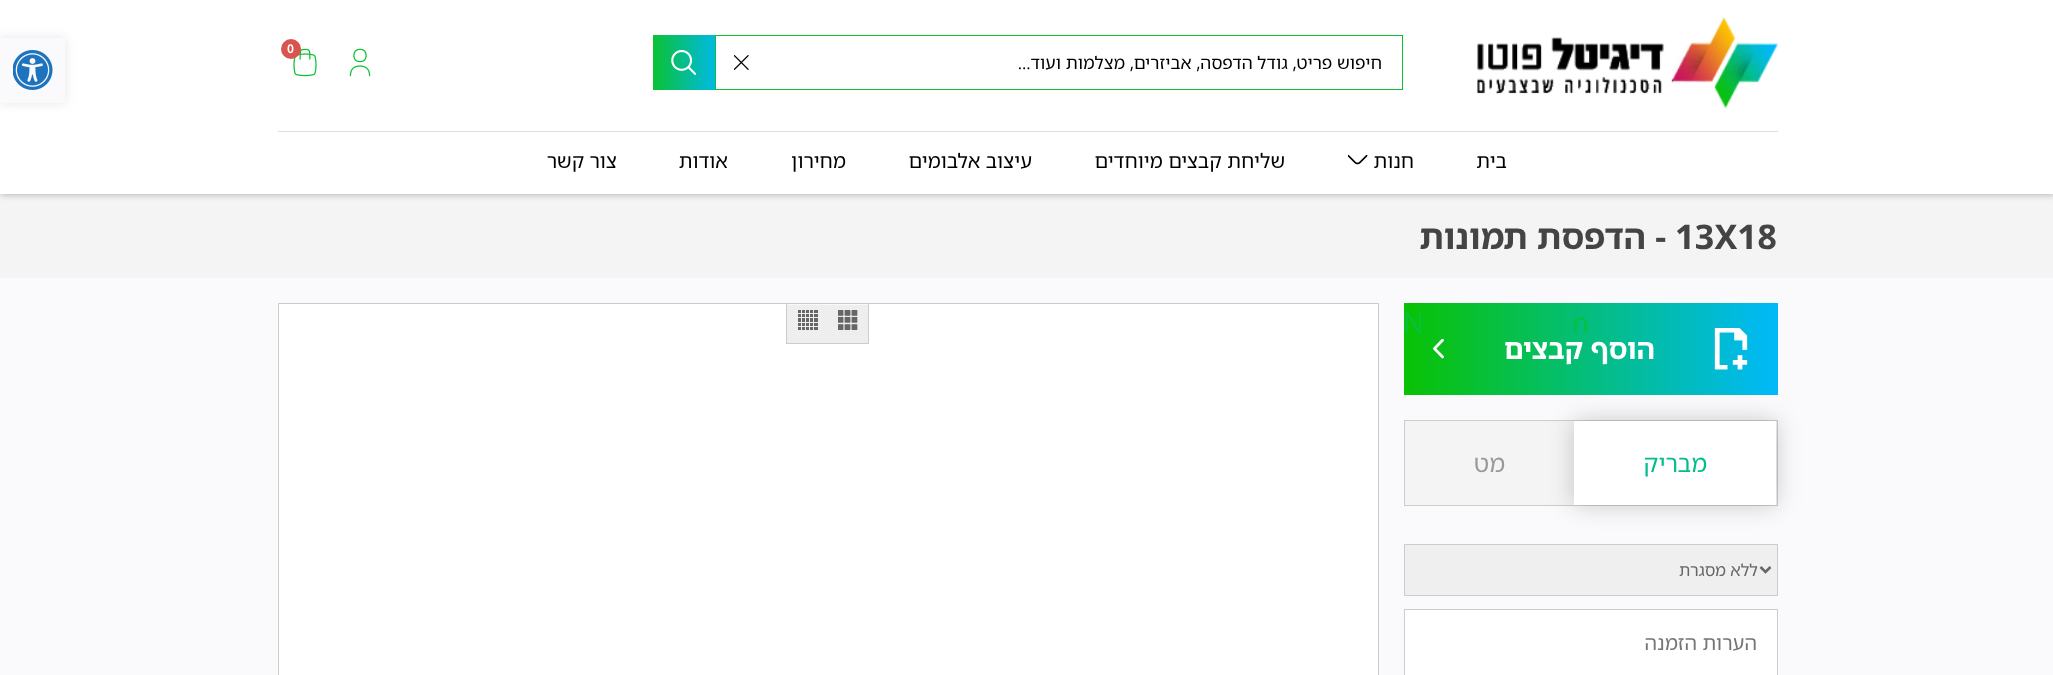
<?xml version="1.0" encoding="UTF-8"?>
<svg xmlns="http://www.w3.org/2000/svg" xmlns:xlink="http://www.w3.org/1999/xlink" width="2053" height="675">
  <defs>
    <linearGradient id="g1" gradientUnits="userSpaceOnUse" x1="653" y1="63" x2="715" y2="63"><stop offset="0" stop-color="#0bc133" /><stop offset="1" stop-color="#00bae4" /></linearGradient>
    <linearGradient id="g2" gradientUnits="userSpaceOnUse" x1="1778" y1="349" x2="1404" y2="349"><stop offset="0" stop-color="#00b9fa" /><stop offset="1" stop-color="#09c203" /></linearGradient>
  </defs>
  <rect width="100%" height="100%" fill="#f4f4f4" />
  <rect x="1" y="1" width="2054" height="194" fill="#000000" fill-opacity="0.25" filter="blur(3px)" />
  <rect width="2053" height="194" fill="#ffffff" />
  <image x="1477" y="17" width="301" height="92" xlink:href="image1.png" />
  <image x="349" y="48" width="22" height="29" xlink:href="image2.png" />
  <image x="293" y="48" width="24" height="29" xlink:href="image3.png" />
  <circle cx="291" cy="49" r="10" fill="#d9534f" />
  <rect x="715.5" y="35.5" width="687" height="54" fill="none" stroke="#0bc133" />
  <image x="734" y="55" width="15" height="15" xlink:href="image4.png" />
  <rect x="653" y="35" width="62" height="55" fill="url(#g1)" />
  <image x="671" y="50" width="25" height="25" xlink:href="image5.png" />
  <rect x="278" y="131" width="1500" height="1" fill="#dddddd" />
  <image x="1348" y="154" width="20" height="11" xlink:href="image6.png" />
  <rect y="38" width="65" height="65" fill="#000000" fill-opacity="0.1" filter="blur(6px)" />
  <rect y="38" width="65" height="65" fill="#fafafd" />
  <image x="13" y="50" width="40" height="40" xlink:href="image7.png" />
  <rect y="278" width="2053" height="397" fill="#fafafd" />
  <rect x="1404.5" y="420.5" width="373" height="85" fill="#f4f4f4" stroke="#cccccc" />
  <rect x="1574" y="421" width="202" height="84" fill="#000000" fill-opacity="0.2" filter="blur(12.5px)" />
  <rect x="1404" y="303" width="374" height="92" fill="url(#g2)" />
  <image x="1714" y="328" width="34" height="42" xlink:href="image8.png" />
  <image x="1433" y="339" width="11" height="20" xlink:href="image9.png" />
  <rect x="1574" y="421" width="202" height="84" fill="#ffffff" />
  <rect x="1404.5" y="544.5" width="373" height="51" fill="#efefef" stroke="#cccccc" />
  <path d="M 1760.5 567 l 5 5 l 5 -5" fill="none" stroke="#666666" stroke-width="2.5" />
  <rect x="1404.5" y="609.5" width="373" height="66" fill="#ffffff" stroke="#cccccc" />
  <rect x="278.5" y="303.5" width="1100" height="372" fill="#ffffff" stroke="#cccccc" />
  <rect x="787" y="305" width="81" height="38" fill="#eeeeee" />
  <rect x="786" y="304" width="83" height="1" fill="#fafafa" />
  <rect x="868" y="304" width="1" height="40" fill="#cccccc" />
  <rect x="786" y="343" width="83" height="1" fill="#cccccc" />
  <rect x="786" y="304" width="1" height="40" fill="#cccccc" />
  <image x="838" y="310" width="20" height="20" xlink:href="image10.png" />
  <image x="798" y="310" width="20" height="20" xlink:href="image11.png" />
  <text x="287" y="53" style="font-family: Noto Sans Hebrew; font-size: 12px; font-weight: 600; fill: #ffffff">0</text>
  <text x="1382" y="69" style="font-family: Noto Sans Hebrew; font-size: 17.5px; direction: rtl; fill: #000000">חיפוש פריט, גודל הדפסה, אביזרים, מצלמות ועוד...</text>
  <text x="1507" y="168" style="font-family: Noto Sans Hebrew; font-size: 20px; direction: rtl; fill: #000000">בית</text>
  <text x="1414" y="168" style="font-family: Noto Sans Hebrew; font-size: 20px; direction: rtl; fill: #000000">חנות</text>
  <text x="1285" y="168" style="font-family: Noto Sans Hebrew; font-size: 20px; direction: rtl; fill: #000000">שליחת קבצים מיוחדים</text>
  <text x="1032" y="168" style="font-family: Noto Sans Hebrew; font-size: 20px; direction: rtl; fill: #000000">עיצוב אלבומים</text>
  <text x="846" y="168" style="font-family: Noto Sans Hebrew; font-size: 20px; direction: rtl; fill: #000000">מחירון</text>
  <text x="728" y="168" style="font-family: Noto Sans Hebrew; font-size: 20px; direction: rtl; fill: #000000">אודות</text>
  <text x="617" y="168" style="font-family: Noto Sans Hebrew; font-size: 20px; direction: rtl; fill: #000000">צור קשר</text>
  <text x="1675" y="249" style="font-family: Noto Sans Hebrew; font-size: 34px; font-weight: bold; fill: #444444">13X18</text>
  <text x="1666" y="249" style="font-family: Noto Sans Hebrew; font-size: 34px; font-weight: bold; direction: rtl; fill: #444444">- הדפסת תמונות</text>
  <text x="1572" y="333" style="font-family: Noto Sans Hebrew; font-size: 28px; fill: #07c040">n</text>
  <text x="1403" y="333" style="font-family: Noto Sans Hebrew; font-size: 28px; fill: #07c040">N</text>
  <text x="1655" y="359" style="font-family: Noto Sans Hebrew; font-size: 28px; font-weight: bold; direction: rtl; fill: #ffffff">הוסף קבצים</text>
  <text x="1707" y="472" style="font-family: Noto Sans Hebrew; font-size: 24px; direction: rtl; fill: #04bd8d">מבריק</text>
  <text x="1505" y="472" style="font-family: Noto Sans Hebrew; font-size: 24px; direction: rtl; fill: #989898">מט</text>
  <text x="1758" y="576" style="font-family: Noto Sans Hebrew; font-size: 16.5px; direction: rtl; fill: #666666">ללא מסגרת</text>
  <text x="1757" y="650" style="font-family: Noto Sans Hebrew; font-size: 20px; direction: rtl; fill: #757575">הערות הזמנה</text>
</svg>
